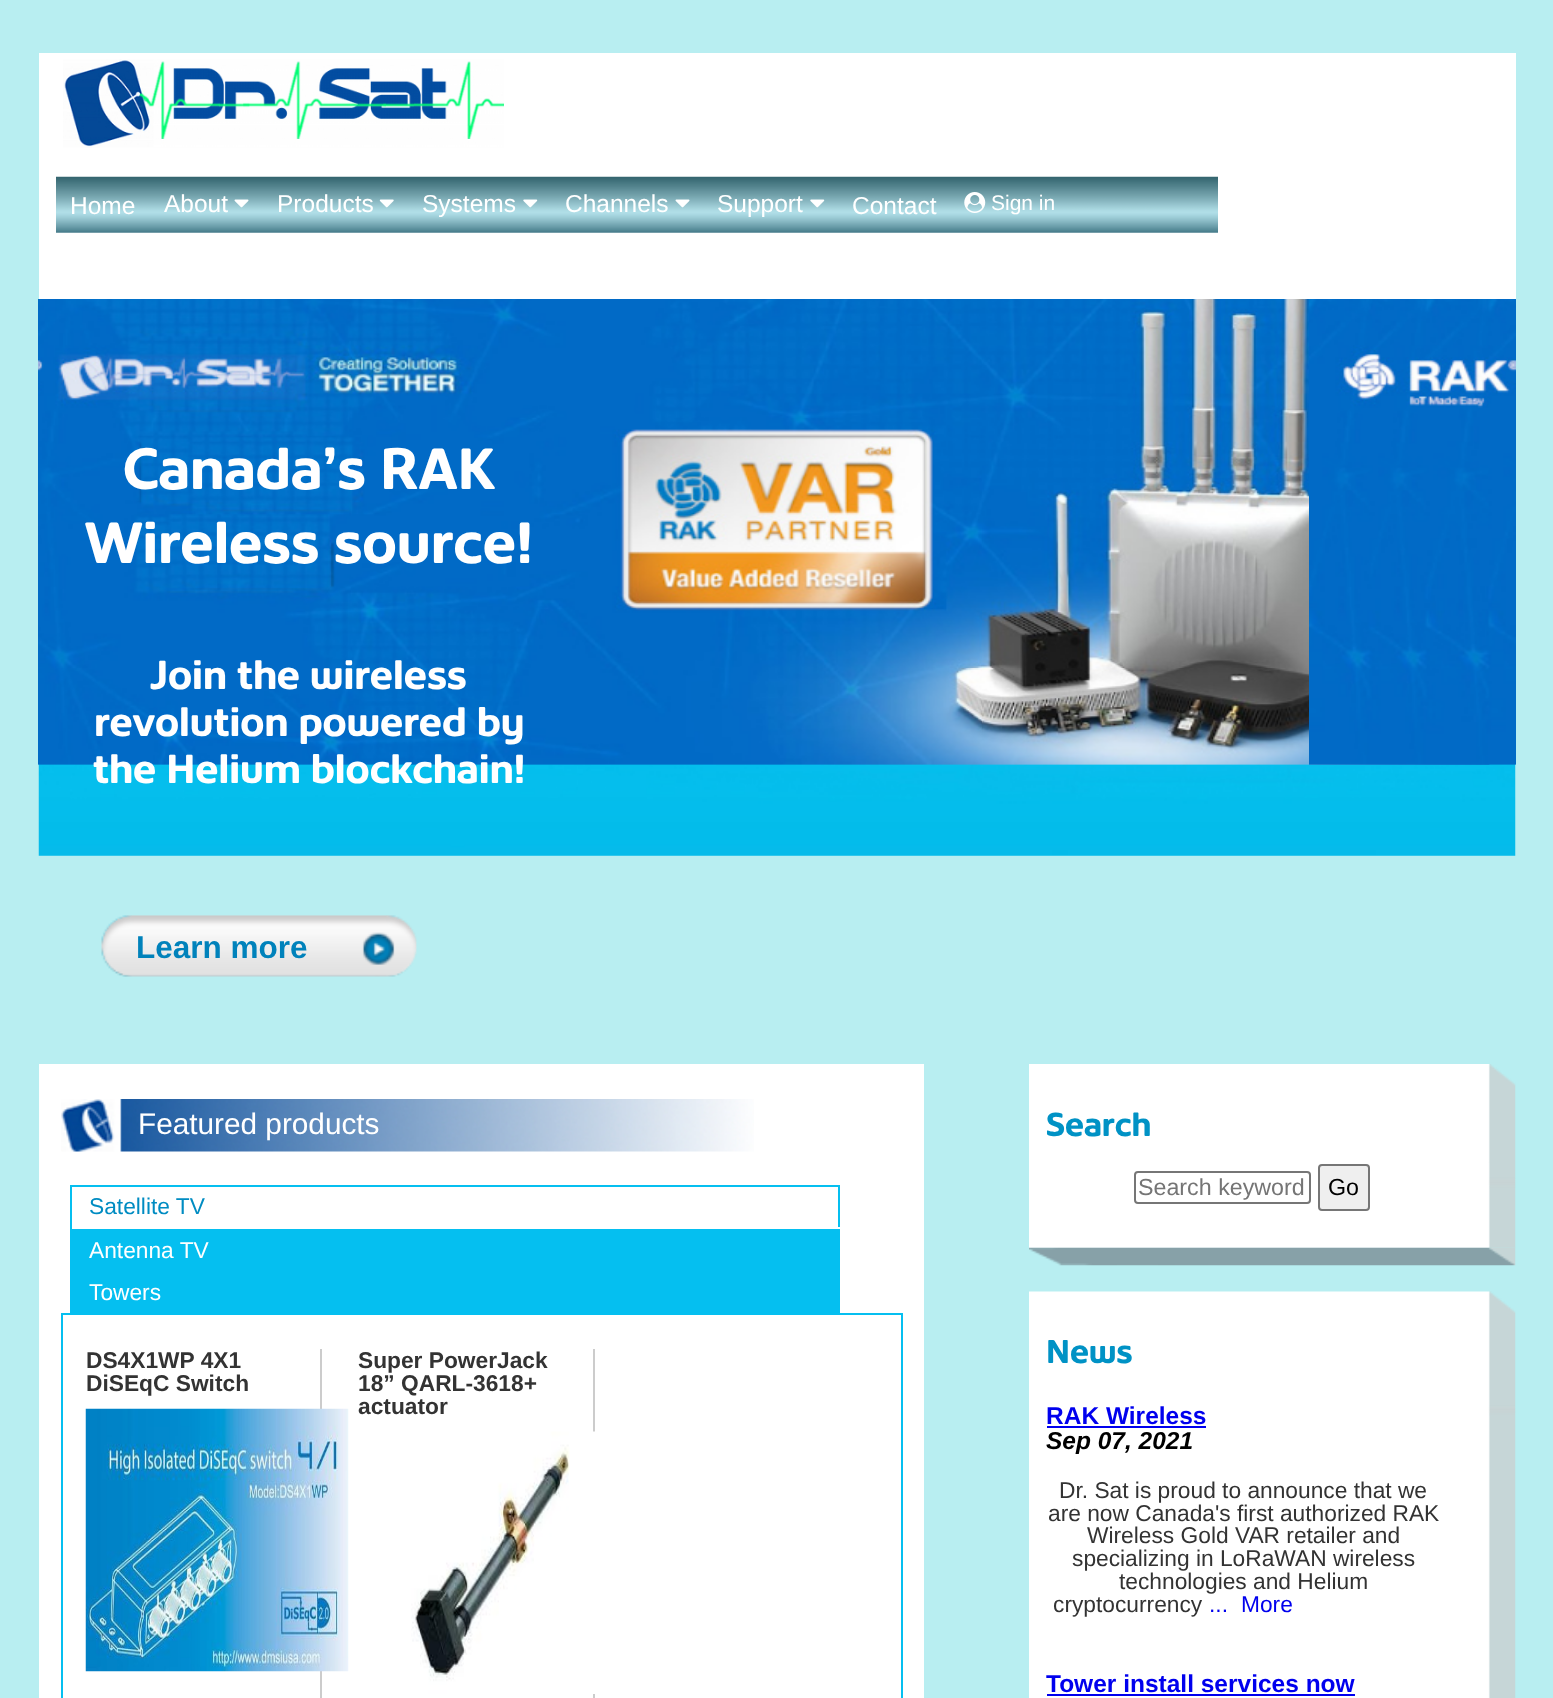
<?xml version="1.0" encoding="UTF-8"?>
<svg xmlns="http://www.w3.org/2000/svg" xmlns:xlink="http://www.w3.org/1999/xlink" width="1553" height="1698">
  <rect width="100%" height="100%" fill="#b8eef1" />
  <rect x="39" y="53" width="1477" height="246" fill="#ffffff" />
  <image x="63" y="59" width="441" height="89" xlink:href="image1.png" />
  <image x="56" y="176" width="1162" height="57" xlink:href="image2.png" />
  <image x="234" y="199" width="15" height="9" xlink:href="image3.png" />
  <image x="379" y="199" width="15" height="9" xlink:href="image4.png" />
  <image x="523" y="199" width="15" height="9" xlink:href="image5.png" />
  <image x="675" y="199" width="15" height="9" xlink:href="image6.png" />
  <image x="810" y="199" width="15" height="9" xlink:href="image7.png" />
  <image x="964" y="192" width="22" height="21" xlink:href="image8.png" />
  <image x="38" y="764" width="1478" height="92" xlink:href="image9.png" />
  <image x="38" y="299" width="1453" height="466" xlink:href="image10.png" />
  <image x="101" y="915" width="316" height="62" xlink:href="image11.png" />
  <image x="1309" y="299" width="207" height="466" xlink:href="image12.png" />
  <rect x="39" y="1064" width="885" height="634" fill="#ffffff" />
  <image x="61" y="1099" width="693" height="53" xlink:href="image13.png" />
  <rect x="70" y="1185" width="770" height="2" fill="#05bff0" />
  <rect x="838" y="1185" width="2" height="44" fill="#05bff0" />
  <rect x="838" y="1227" width="2" height="2" fill="#ffffff" />
  <rect x="70" y="1185" width="2" height="44" fill="#05bff0" />
  <rect x="70" y="1229" width="770" height="84" fill="#05bff0" />
  <rect x="62" y="1314" width="840" height="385" fill="none" stroke="#05bff0" stroke-width="2" />
  <rect x="320" y="1349" width="2" height="349" fill="#cccccc" />
  <image x="85" y="1408" width="264" height="264" xlink:href="image14.png" />
  <rect x="593" y="1349" width="2" height="349" fill="#cccccc" />
  <image x="411" y="1431" width="184" height="263" xlink:href="image15.png" />
  <image x="1029" y="1064" width="487" height="184" xlink:href="image16.png" />
  <rect x="1135" y="1172" width="175" height="31" rx="3" fill="none" stroke="#767676" stroke-width="2" />
  <rect x="1319" y="1165" width="50" height="45" rx="3" fill="#efefef" stroke="#767676" stroke-width="2" />
  <image x="1029" y="1247" width="487" height="19" xlink:href="image17.png" />
  <image x="1029" y="1291" width="487" height="407" xlink:href="image18.png" />
  <rect x="1047" y="1426" width="159" height="2" fill="#0000ee" />
  <rect x="1047" y="1694" width="308" height="2" fill="#0000ee" />
  <text x="70" y="214" style="font-family: Liberation Sans; font-size: 24.5px; fill: #ffffff">Home</text>
  <text x="164" y="212" style="font-family: Liberation Sans; font-size: 24.5px; fill: #ffffff">About</text>
  <text x="277" y="212" style="font-family: Liberation Sans; font-size: 24.5px; fill: #ffffff">Products</text>
  <text x="422" y="212" style="font-family: Liberation Sans; font-size: 24.5px; fill: #ffffff">Systems</text>
  <text x="565" y="212" style="font-family: Liberation Sans; font-size: 24.5px; fill: #ffffff">Channels</text>
  <text x="717" y="212" style="font-family: Liberation Sans; font-size: 24.5px; fill: #ffffff">Support</text>
  <text x="852" y="214" style="font-family: Liberation Sans; font-size: 24.5px; fill: #ffffff">Contact</text>
  <text x="991" y="210" style="font-family: Liberation Sans; font-size: 21px; fill: #ffffff">Sign in</text>
  <text x="123" y="489" style="font-family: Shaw; font-size: 57.75px; font-weight: bold; fill: #ffffff">Canada's RAK</text>
  <text x="85" y="563" style="font-family: Shaw; font-size: 57.75px; font-weight: bold; fill: #ffffff">Wireless source!</text>
  <text x="151" y="689" style="font-family: Shaw; font-size: 40.25px; font-weight: bold; fill: #ffffff">Join the wireless</text>
  <text x="94" y="736" style="font-family: Shaw; font-size: 40.25px; font-weight: bold; fill: #ffffff">revolution powered by</text>
  <text x="93" y="783" style="font-family: Shaw; font-size: 40.25px; font-weight: bold; fill: #ffffff">the Helium blockchain!</text>
  <text x="136" y="958" style="font-family: Liberation Sans; font-size: 31.5px; font-weight: bold; fill: #0082bb">Learn more</text>
  <text x="138" y="1134" style="font-family: Liberation Sans; font-size: 29.75px; fill: #ffffff">Featured products</text>
  <text x="89" y="1214" style="font-family: Liberation Sans; font-size: 22.75px; fill: #008cc2">Satellite TV</text>
  <text x="89" y="1258" style="font-family: Liberation Sans; font-size: 22.75px; fill: #ffffff">Antenna TV</text>
  <text x="89" y="1300" style="font-family: Liberation Sans; font-size: 22.75px; fill: #ffffff">Towers</text>
  <text x="86" y="1368" style="font-family: Liberation Sans; font-size: 22.75px; font-weight: bold; fill: #333333">DS4X1WP 4X1</text>
  <text x="86" y="1391" style="font-family: Liberation Sans; font-size: 22.75px; font-weight: bold; fill: #333333">DiSEqC Switch</text>
  <text x="358" y="1368" style="font-family: Liberation Sans; font-size: 22.75px; font-weight: bold; fill: #333333">Super PowerJack</text>
  <text x="358" y="1391" style="font-family: Liberation Sans; font-size: 22.75px; font-weight: bold; fill: #333333">18” QARL-3618+</text>
  <text x="358" y="1414" style="font-family: Liberation Sans; font-size: 22.75px; font-weight: bold; fill: #333333">actuator</text>
  <text x="1046" y="1136" style="font-family: Shaw; font-size: 33px; font-weight: bold; fill: #0092c5">Search</text>
  <text x="1138" y="1195" style="font-family: Liberation Sans; font-size: 23.25px; fill: #757575">Search keyword</text>
  <text x="1328" y="1195" style="font-family: Liberation Sans; font-size: 23.25px; fill: #000000">Go</text>
  <text x="1046" y="1363" style="font-family: Shaw; font-size: 33px; font-weight: bold; fill: #0092c5">News</text>
  <text x="1046" y="1424" style="font-family: Liberation Sans; font-size: 24.5px; font-weight: bold; fill: #0000ee">RAK Wireless</text>
  <text x="1046" y="1449" style="font-family: Liberation Sans; font-size: 24.5px; font-weight: bold; font-style: italic; fill: #000000">Sep 07, 2021</text>
  <text x="1059" y="1498" style="font-family: Liberation Sans; font-size: 22.75px; fill: #333333">Dr. Sat is proud to announce that we</text>
  <text x="1048" y="1521" style="font-family: Liberation Sans; font-size: 22.75px; fill: #333333">are now Canada's first authorized RAK</text>
  <text x="1087" y="1543" style="font-family: Liberation Sans; font-size: 22.75px; fill: #333333">Wireless Gold VAR retailer and</text>
  <text x="1072" y="1566" style="font-family: Liberation Sans; font-size: 22.75px; fill: #333333">specializing in LoRaWAN wireless</text>
  <text x="1119" y="1589" style="font-family: Liberation Sans; font-size: 22.75px; fill: #333333">technologies and Helium</text>
  <text x="1053" y="1612" style="font-family: Liberation Sans; font-size: 22.75px; fill: #333333">cryptocurrency</text>
  <text x="1209" y="1612" style="font-family: Liberation Sans; font-size: 22.75px; fill: #0000ee">...</text>
  <text x="1241" y="1612" style="font-family: Liberation Sans; font-size: 22.75px; fill: #0000ee">More</text>
  <text x="1046" y="1692" style="font-family: Liberation Sans; font-size: 24.5px; font-weight: bold; fill: #0000ee">Tower install services now</text>
</svg>
